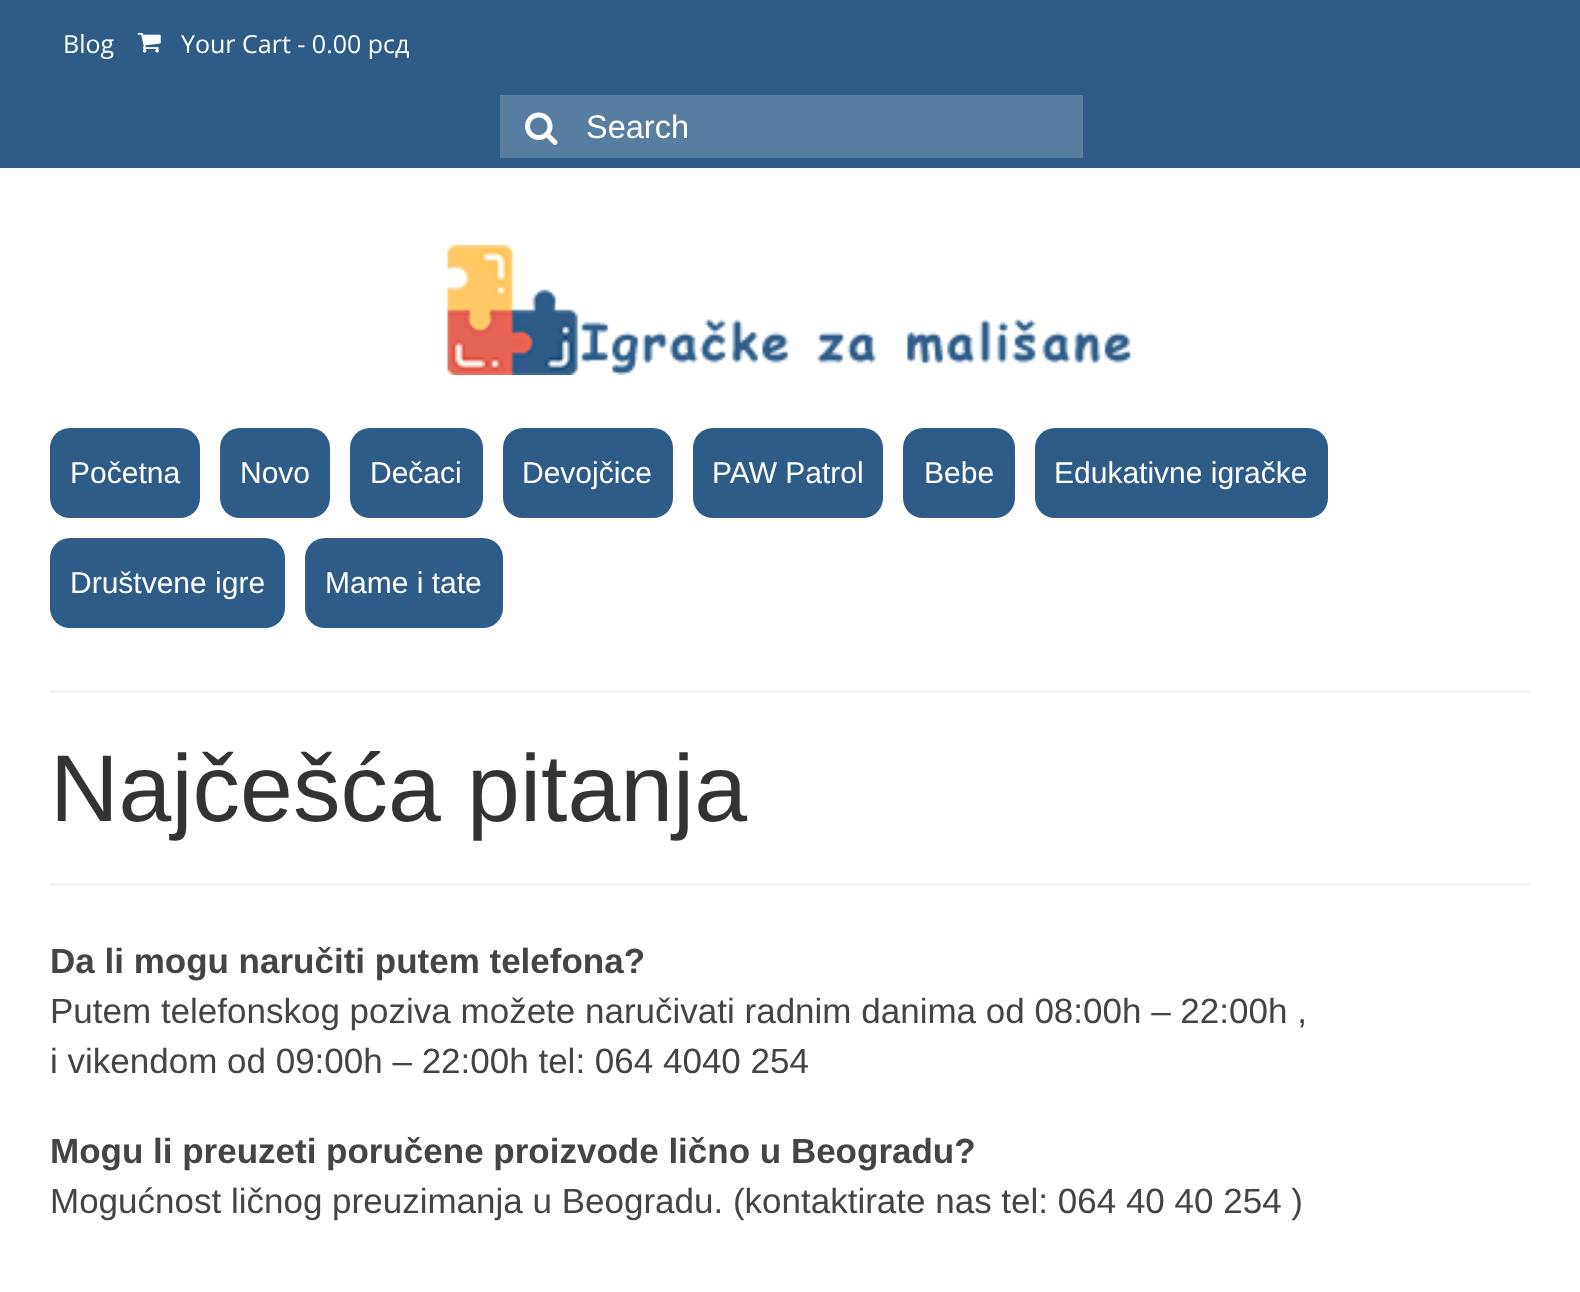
<?xml version="1.0" encoding="UTF-8"?>
<svg xmlns="http://www.w3.org/2000/svg" xmlns:xlink="http://www.w3.org/1999/xlink" width="1580" height="1292">
  <rect width="100%" height="100%" fill="#ffffff" />
  <rect width="1580" height="168" fill="#2d5c88" />
  <image x="137" y="32" width="24" height="21" xlink:href="image1.png" />
  <rect x="500" y="95" width="583" height="63" fill="#577da0" />
  <image x="525" y="112" width="33" height="33" xlink:href="image2.png" />
  <image x="447" y="245" width="684" height="130" xlink:href="image3.png" />
  <rect x="50" y="428" width="150" height="90" rx="20" fill="#2d5c88" />
  <rect x="220" y="428" width="110" height="90" rx="20" fill="#2d5c88" />
  <rect x="350" y="428" width="133" height="90" rx="20" fill="#2d5c88" />
  <rect x="503" y="428" width="170" height="90" rx="20" fill="#2d5c88" />
  <rect x="693" y="428" width="190" height="90" rx="20" fill="#2d5c88" />
  <rect x="903" y="428" width="112" height="90" rx="20" fill="#2d5c88" />
  <rect x="1035" y="428" width="293" height="90" rx="20" fill="#2d5c88" />
  <rect x="50" y="538" width="235" height="90" rx="20" fill="#2d5c88" />
  <rect x="305" y="538" width="198" height="90" rx="20" fill="#2d5c88" />
  <rect x="50" y="690" width="1480" height="3" fill="#f2f2f2" />
  <rect x="50" y="883" width="1480" height="3" fill="#f2f2f2" />
  <text x="63" y="53" style="font-family: Open Sans; font-size: 25px; fill: #ffffff">Blog</text>
  <text x="181" y="53" style="font-family: Open Sans; font-size: 25px; fill: #ffffff">Your Cart - 0.00 рсд</text>
  <text x="586" y="138" style="font-family: Liberation Sans; font-size: 32.5px; fill: #ffffff">Search</text>
  <text x="70" y="483" style="font-family: Liberation Sans; font-size: 30px; fill: #ffffff">Početna</text>
  <text x="240" y="483" style="font-family: Liberation Sans; font-size: 30px; fill: #ffffff">Novo</text>
  <text x="370" y="483" style="font-family: Liberation Sans; font-size: 30px; fill: #ffffff">Dečaci</text>
  <text x="522" y="483" style="font-family: Liberation Sans; font-size: 30px; fill: #ffffff">Devojčice</text>
  <text x="712" y="483" style="font-family: Liberation Sans; font-size: 30px; fill: #ffffff">PAW Patrol</text>
  <text x="924" y="483" style="font-family: Liberation Sans; font-size: 30px; fill: #ffffff">Bebe</text>
  <text x="1054" y="483" style="font-family: Liberation Sans; font-size: 30px; fill: #ffffff">Edukativne igračke</text>
  <text x="70" y="593" style="font-family: Liberation Sans; font-size: 30px; fill: #ffffff">Društvene igre</text>
  <text x="325" y="593" style="font-family: Liberation Sans; font-size: 30px; fill: #ffffff">Mame i tate</text>
  <text x="50" y="821" style="font-family: Liberation Sans; font-size: 95px; fill: #333333">Najčešća pitanja</text>
  <text x="50" y="973" style="font-family: Liberation Sans; font-size: 35px; font-weight: bold; fill: #444444">Da li mogu naručiti putem telefona?</text>
  <text x="50" y="1023" style="font-family: Liberation Sans; font-size: 35px; fill: #444444">Putem telefonskog poziva možete naručivati radnim danima od 08:00h – 22:00h ,</text>
  <text x="50" y="1073" style="font-family: Liberation Sans; font-size: 35px; fill: #444444">i vikendom od 09:00h – 22:00h tel: 064 4040 254</text>
  <text x="50" y="1163" style="font-family: Liberation Sans; font-size: 35px; font-weight: bold; fill: #444444">Mogu li preuzeti poručene proizvode lično u Beogradu?</text>
  <text x="50" y="1213" style="font-family: Liberation Sans; font-size: 35px; fill: #444444">Mogućnost ličnog preuzimanja u Beogradu. (kontaktirate nas tel: 064 40 40 254 )</text>
</svg>
